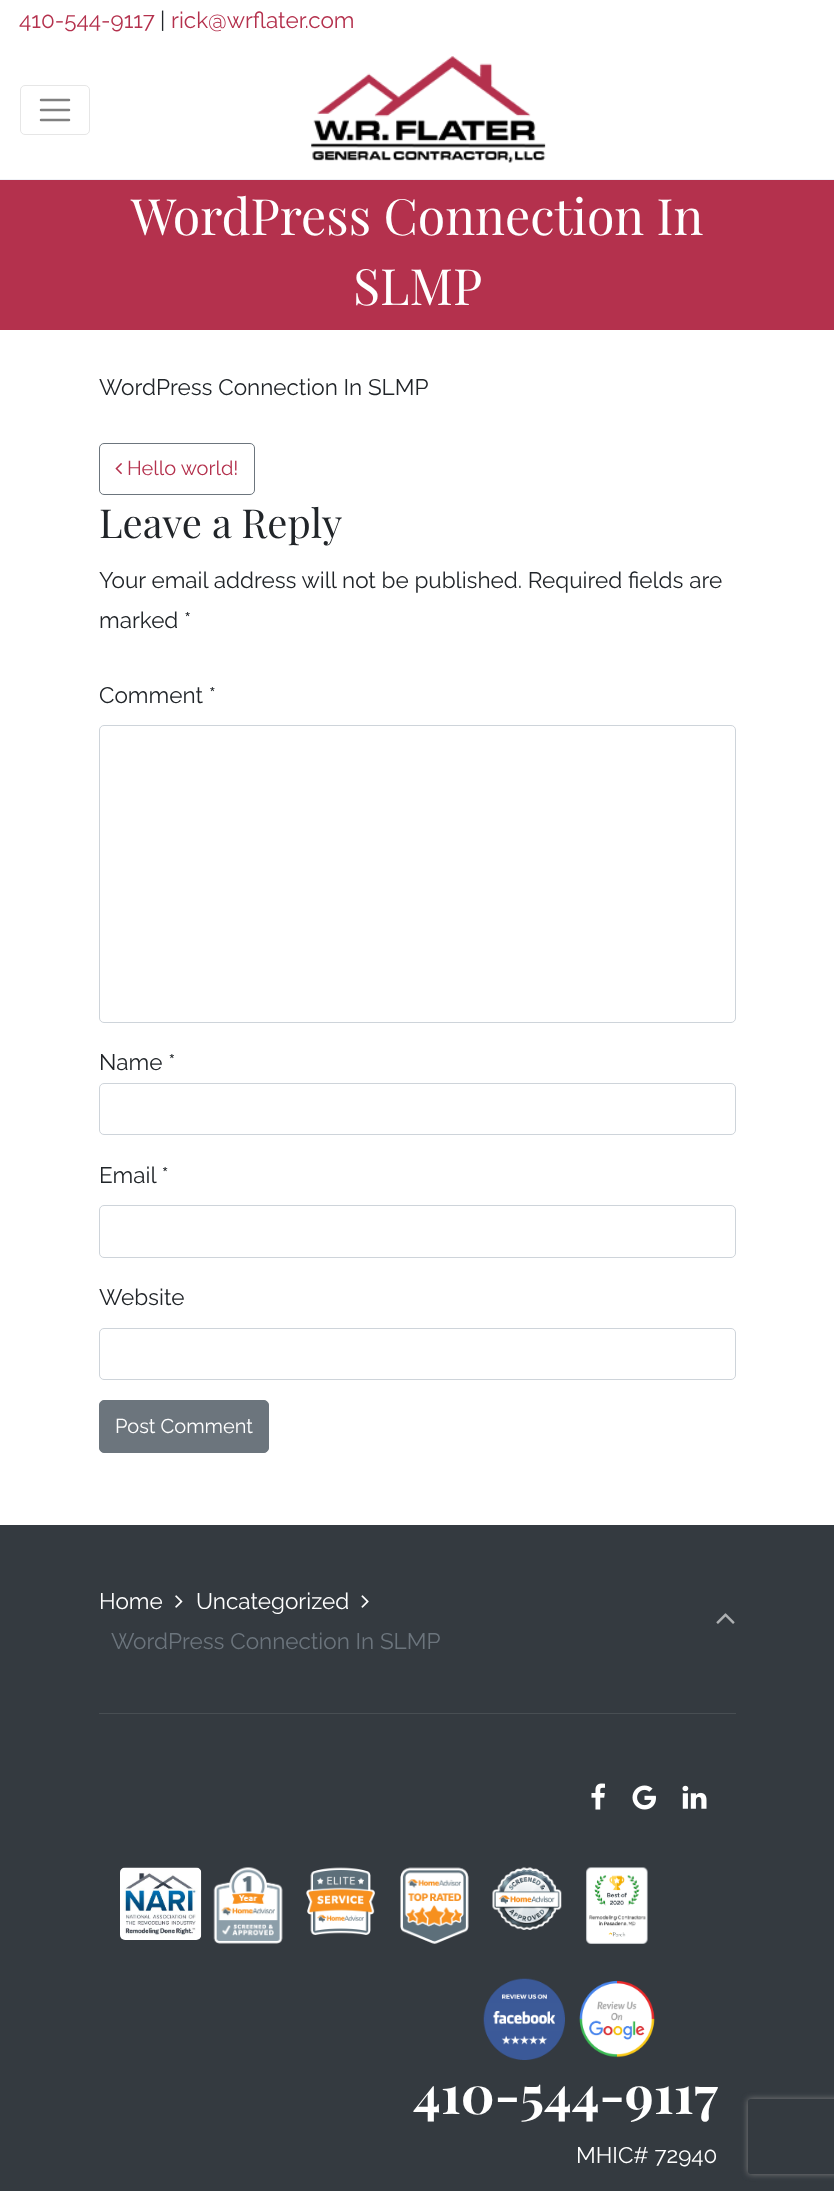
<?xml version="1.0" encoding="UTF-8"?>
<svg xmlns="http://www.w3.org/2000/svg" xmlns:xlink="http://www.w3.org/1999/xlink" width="834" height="2191">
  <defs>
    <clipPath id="clip1"><path d="M 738 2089 h 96 v 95 h -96 z m 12.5 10 h 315 c 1.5 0 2.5 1 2.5 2.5 v 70 c 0 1.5 -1 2.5 -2.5 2.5 h -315 c -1.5 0 -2.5 -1 -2.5 -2.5 v -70 c 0 -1.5 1 -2.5 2.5 -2.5 z" clip-rule="evenodd" /></clipPath>
  </defs>
  <rect width="100%" height="100%" fill="#ffffff" />
  <rect y="179" width="834" height="1" fill="#f0f2f7" />
  <rect x="20.5" y="85.5" width="69" height="49" rx="4.5" fill="none" stroke="#e6e6e6" />
  <path d="M 41 100 h 28 m -28 10 h 28 m -28 10 h 28" fill="none" stroke="#808080" stroke-width="2.5" stroke-linecap="round" />
  <image x="311" y="56" width="235" height="107" xlink:href="image1.png" />
  <rect y="180" width="834" height="150" fill="#b4314d" />
  <rect x="99.5" y="443.5" width="155" height="51" rx="4.5" fill="none" stroke="#6c757d" />
  <image x="115" y="463" width="7" height="12" xlink:href="image2.png" />
  <rect x="99.5" y="725.5" width="636" height="297" rx="4.5" fill="none" stroke="#ced4da" />
  <rect x="99.5" y="1083.5" width="636" height="51" rx="4.5" fill="none" stroke="#ced4da" />
  <rect x="99.5" y="1205.5" width="636" height="52" rx="4.5" fill="none" stroke="#ced4da" />
  <rect x="99.5" y="1328.5" width="636" height="51" rx="4.5" fill="none" stroke="#ced4da" />
  <rect x="99.5" y="1400.5" width="169" height="52" rx="4.5" fill="#6c757d" stroke="#6c757d" />
  <rect y="1525" width="834" height="666" fill="#343a40" />
  <rect x="99" y="1713" width="637" height="1" fill="#484e53" />
  <image x="175" y="1595" width="8" height="13" xlink:href="image3.png" />
  <image x="361" y="1595" width="8" height="13" xlink:href="image4.png" />
  <image x="716" y="1613" width="19" height="11" xlink:href="image5.png" />
  <image x="591" y="1783" width="14" height="27" xlink:href="image6.png" />
  <image x="632" y="1785" width="24" height="25" xlink:href="image7.png" />
  <image x="682" y="1785" width="25" height="24" xlink:href="image8.png" />
  <image x="120" y="1867" width="82" height="73" xlink:href="image9.png" />
  <image x="213" y="1867" width="70" height="77" xlink:href="image10.png" />
  <image x="306" y="1867" width="69" height="68" xlink:href="image11.png" />
  <image x="400" y="1867" width="69" height="77" xlink:href="image12.png" />
  <image x="492" y="1867" width="70" height="63" xlink:href="image13.png" />
  <image x="586" y="1867" width="62" height="77" xlink:href="image14.png" />
  <image x="483" y="1978" width="82" height="82" xlink:href="image15.png" />
  <image x="579" y="1980" width="76" height="78" xlink:href="image16.png" />
  <g clip-path="url(#clip1)">
    <rect x="748" y="2099" width="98" height="75" rx="2.5" fill="#808080" filter="blur(3px)" />
  </g>
  <text x="19" y="28" style="font-family: Raleway; font-size: 22.5px; font-weight: 100; fill: #b4314d">410-544-9117</text>
  <text x="160" y="28" style="font-family: Raleway; font-size: 22.5px; font-weight: 100; fill: #212529">|</text>
  <text x="171" y="28" style="font-family: Raleway; font-size: 22.5px; font-weight: 100; fill: #b4314d">rick@wrflater.com</text>
  <text x="131" y="235" style="font-family: Playfair Display; font-size: 50px; fill: #ffffff">WordPress Connection In</text>
  <text x="353" y="305" style="font-family: Playfair Display; font-size: 50px; fill: #ffffff">SLMP</text>
  <text x="99" y="395" style="font-family: Raleway; font-size: 22.5px; font-weight: 100; fill: #212529">WordPress Connection In SLMP</text>
  <text x="127" y="475" style="font-family: Raleway; font-size: 20px; font-weight: 100; fill: #b4314d">Hello world!</text>
  <text x="99" y="538" style="font-family: Playfair Display; font-size: 40px; fill: #212529">Leave a Reply</text>
  <text x="99" y="588" style="font-family: Raleway; font-size: 22.5px; font-weight: 100; fill: #212529">Your email address will not be published. Required fields are</text>
  <text x="99" y="628" style="font-family: Raleway; font-size: 22.5px; font-weight: 100; fill: #212529">marked *</text>
  <text x="99" y="703" style="font-family: Raleway; font-size: 22.5px; font-weight: 100; fill: #212529">Comment *</text>
  <text x="99" y="1070" style="font-family: Raleway; font-size: 22.5px; font-weight: 100; fill: #212529">Name *</text>
  <text x="99" y="1183" style="font-family: Raleway; font-size: 22.5px; font-weight: 100; fill: #212529">Email *</text>
  <text x="99" y="1305" style="font-family: Raleway; font-size: 22.5px; font-weight: 100; fill: #212529">Website</text>
  <text x="115" y="1433" style="font-family: Raleway; font-size: 20px; font-weight: 100; fill: #ffffff">Post Comment</text>
  <text x="99" y="1609" style="font-family: Raleway; font-size: 22.5px; font-weight: 100; fill: #ffffff">Home</text>
  <text x="196" y="1609" style="font-family: Raleway; font-size: 22.5px; font-weight: 100; fill: #ffffff">Uncategorized</text>
  <text x="111" y="1649" style="font-family: Raleway; font-size: 22.5px; font-weight: 100; fill: #6c757d">WordPress Connection In SLMP</text>
  <text x="413" y="2114" style="font-family: Playfair Display; font-size: 52.5px; font-weight: bold; fill: #ffffff">410-544-9117</text>
  <text x="576" y="2163" style="font-family: Raleway; font-size: 22.5px; font-weight: 100; fill: #ffffff">MHIC# 72940</text>
</svg>
